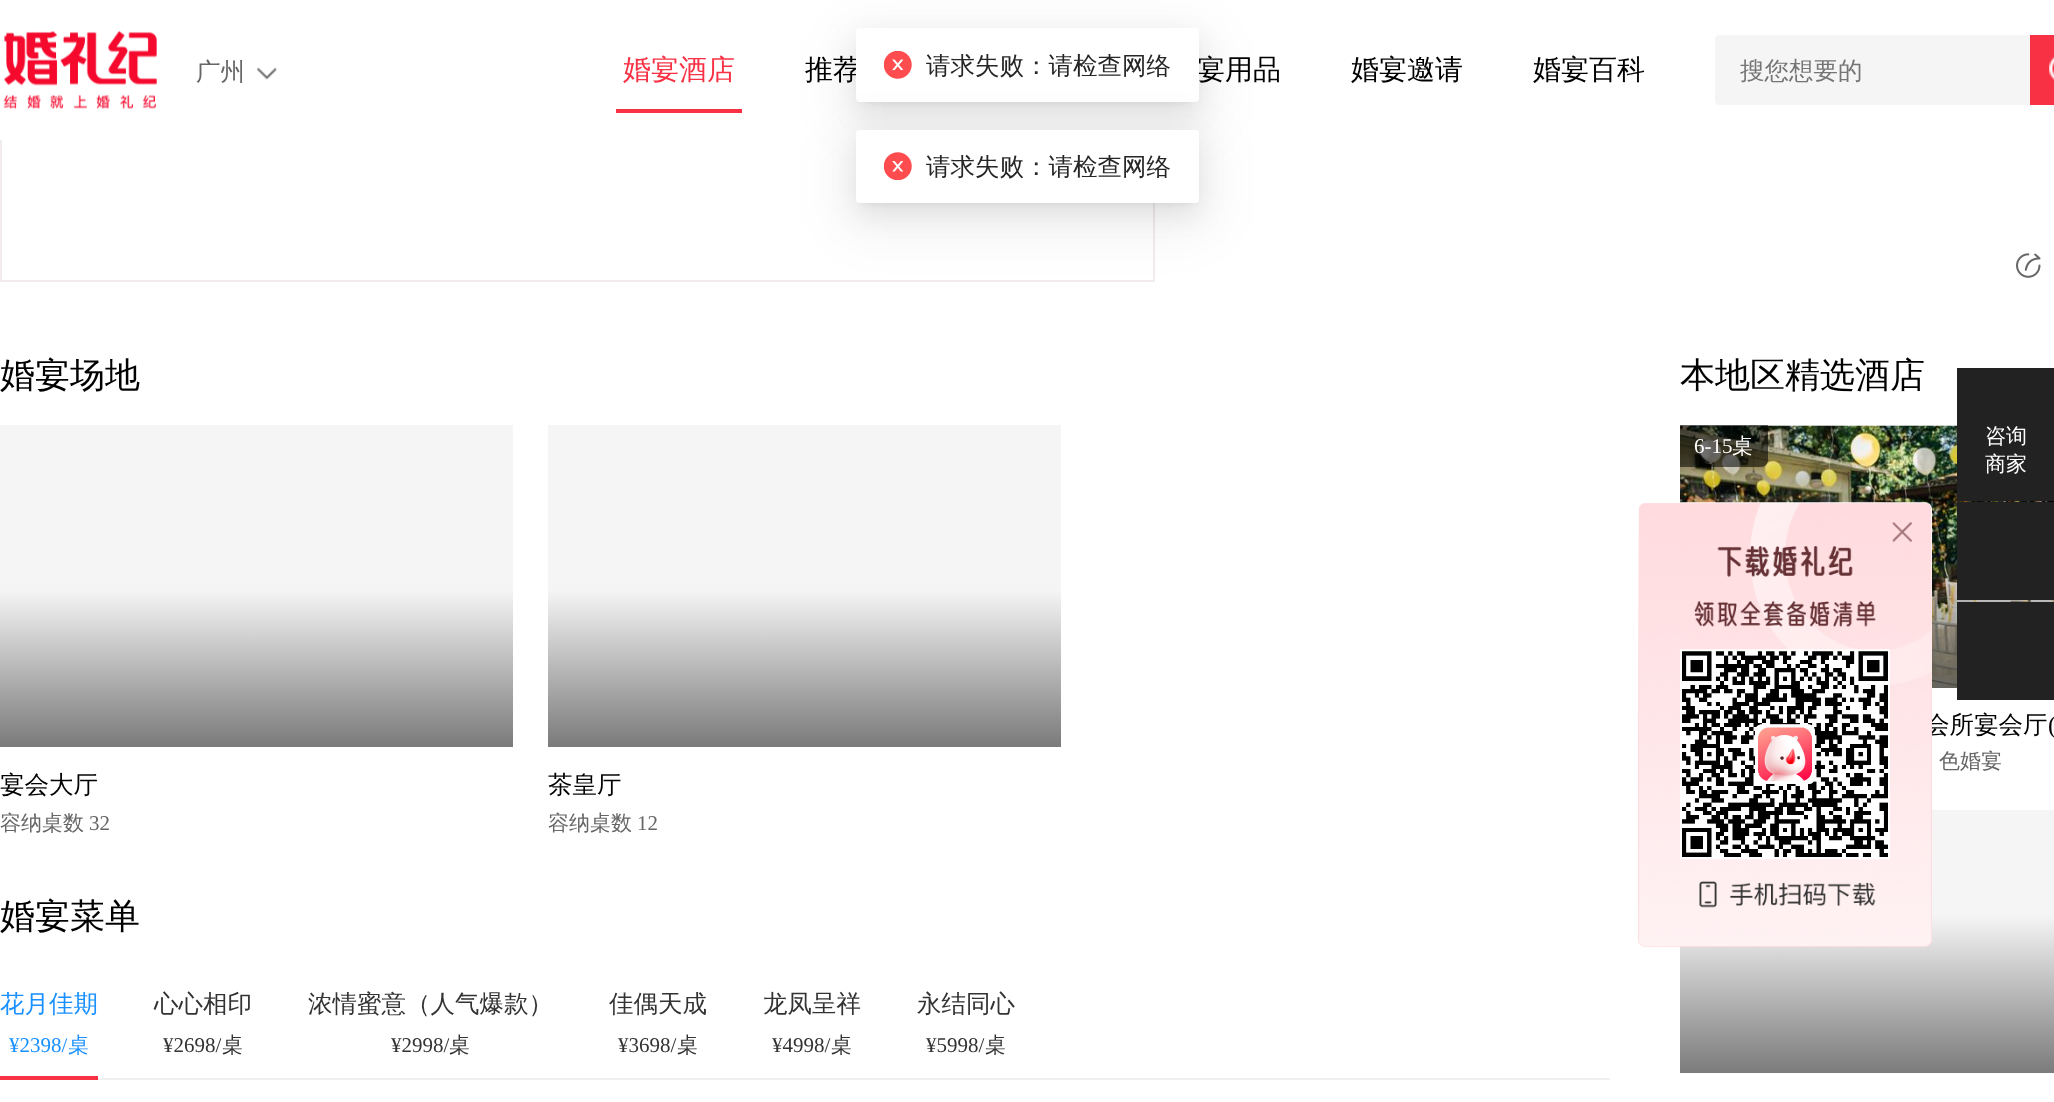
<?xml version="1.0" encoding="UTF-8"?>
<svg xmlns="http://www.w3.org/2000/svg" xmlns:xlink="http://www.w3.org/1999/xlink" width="2054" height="1102">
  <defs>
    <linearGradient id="g1" gradientUnits="userSpaceOnUse" x1="256" y1="590" x2="256" y2="747"><stop offset="0" stop-color="#f5f5f5" /><stop offset="1" stop-color="#7a7a7a" /></linearGradient>
    <linearGradient id="g2" gradientUnits="userSpaceOnUse" x1="804" y1="590" x2="804" y2="747"><stop offset="0" stop-color="#f5f5f5" /><stop offset="1" stop-color="#7a7a7a" /></linearGradient>
    <linearGradient id="g3" gradientUnits="userSpaceOnUse" x1="1890" y1="915" x2="1890" y2="1073"><stop offset="0" stop-color="#f5f5f5" /><stop offset="1" stop-color="#7b7b7b" /></linearGradient>
  </defs>
  <rect width="100%" height="100%" fill="#ffffff" />
  <rect x="1" y="-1" width="1153" height="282" fill="none" stroke="#f1ebeb" stroke-width="2" />
  <rect width="1155" height="140" fill="#ffffff" />
  <rect x="842" y="30" width="371" height="101" rx="18" fill="#000000" fill-opacity="0.05" filter="blur(24.5px)" />
  <rect x="856" y="39" width="343" height="73" rx="4" fill="#000000" fill-opacity="0.08" filter="blur(14px)" />
  <rect x="863" y="40" width="329" height="60" fill="#000000" fill-opacity="0.12" filter="blur(5px)" />
  <rect x="863" y="142" width="329" height="59" fill="#000000" fill-opacity="0.12" filter="blur(5px)" />
  <image x="3" y="31" width="154" height="78" xlink:href="image3.png" />
  <image x="257" y="67" width="20" height="13" xlink:href="image4.png" />
  <rect x="616" y="109" width="126" height="4" fill="#f83244" />
  <path d="M 1719 35 h 311 v 70 h -311 c -2 0 -4 -2 -4 -4 v -62 c 0 -2 2 -4 4 -4 z" fill="#f5f5f5" />
  <rect x="2030" y="35" width="24" height="70" fill="#f83244" />
  <image x="2049" y="56" width="5" height="25" xlink:href="image5.png" />
  <rect y="425" width="513" height="165" fill="#f5f5f5" />
  <rect y="590" width="513" height="157" fill="url(#g1)" />
  <rect x="548" y="425" width="513" height="165" fill="#f5f5f5" />
  <rect x="548" y="590" width="513" height="157" fill="url(#g2)" />
  <rect y="1076" width="98" height="4" fill="#f83244" />
  <rect x="98" y="1078" width="1512" height="2" fill="#f0f0f0" />
  <rect x="1680" y="425" width="277" height="1" fill="#f5f5f5" />
  <image x="1680" y="425" width="374" height="263" xlink:href="image6.png" />
  <path d="M 1680 425 h 88 v 35 c 0 4 -3 7 -7 7 h -81 z" fill="#000000" fill-opacity="0.55" />
  <rect x="1932" y="810" width="122" height="105" fill="#f5f5f5" />
  <rect x="1680" y="915" width="374" height="158" fill="url(#g3)" />
  <image x="2016" y="253" width="25" height="25" xlink:href="image7.png" />
  <rect x="1957" y="368" width="97" height="133" fill="#222222" />
  <rect x="1957" y="502" width="97" height="98" fill="#222222" />
  <rect x="1957" y="602" width="97" height="98" fill="#222222" />
  <text x="196" y="80" style="font-family: WenQuanYi Zen Hei; font-size: 24.5px; font-weight: 500; fill: #666666">广州</text>
  <text x="623" y="79" style="font-family: WenQuanYi Zen Hei; font-size: 28px; font-weight: 500; fill: #f83244">婚宴酒店</text>
  <text x="805" y="79" style="font-family: WenQuanYi Zen Hei; font-size: 28px; font-weight: 500; fill: #000000">推荐</text>
  <text x="1197" y="79" style="font-family: WenQuanYi Zen Hei; font-size: 28px; font-weight: 500; fill: #000000">宴用品</text>
  <rect x="856" y="28" width="343" height="74" rx="4" fill="#ffffff" />
  <rect x="856" y="140" width="343" height="74" rx="4" fill="#000000" fill-opacity="0.08" filter="blur(14px)" />
  <rect x="842" y="131" width="371" height="102" rx="18" fill="#000000" fill-opacity="0.05" filter="blur(24.5px)" />
  <rect x="856" y="130" width="343" height="73" rx="4" fill="#ffffff" />
  <image x="884" y="152" width="28" height="28" xlink:href="image2.png" />
  <image x="884" y="51" width="28" height="28" xlink:href="image1.png" />
  <text x="926" y="175" style="font-family: WenQuanYi Zen Hei; font-size: 24.5px; font-weight: 500; fill: #262626">请求失败：请检查网络</text>
  <text x="926" y="74" style="font-family: WenQuanYi Zen Hei; font-size: 24.5px; font-weight: 500; fill: #262626">请求失败：请检查网络</text>
  <text x="1351" y="79" style="font-family: WenQuanYi Zen Hei; font-size: 28px; font-weight: 500; fill: #000000">婚宴邀请</text>
  <text x="1533" y="79" style="font-family: WenQuanYi Zen Hei; font-size: 28px; font-weight: 500; fill: #000000">婚宴百科</text>
  <text x="1740" y="79" style="font-family: WenQuanYi Zen Hei; font-size: 24.5px; font-weight: 500; fill: #757575">搜您想要的</text>
  <text x="0" y="387" style="font-family: WenQuanYi Zen Hei; font-size: 35px; font-weight: 500; fill: #000000">婚宴场地</text>
  <text x="0" y="793" style="font-family: WenQuanYi Zen Hei; font-size: 24.5px; font-weight: 500; fill: #000000">宴会大厅</text>
  <text x="0" y="830" style="font-family: WenQuanYi Zen Hei; font-size: 21px; font-weight: 500; fill: #666666">容纳桌数</text>
  <text x="89" y="830" style="font-family: Liberation Serif; font-size: 21px; fill: #666666">32</text>
  <text x="548" y="793" style="font-family: WenQuanYi Zen Hei; font-size: 24.5px; font-weight: 500; fill: #000000">茶皇厅</text>
  <text x="548" y="830" style="font-family: WenQuanYi Zen Hei; font-size: 21px; font-weight: 500; fill: #666666">容纳桌数</text>
  <text x="637" y="830" style="font-family: Liberation Serif; font-size: 21px; fill: #666666">12</text>
  <text x="0" y="928" style="font-family: WenQuanYi Zen Hei; font-size: 35px; font-weight: 500; fill: #000000">婚宴菜单</text>
  <text x="0" y="1012" style="font-family: WenQuanYi Zen Hei; font-size: 24.5px; font-weight: 500; fill: #1890ff">花月佳期</text>
  <text x="9" y="1052" style="font-family: Liberation Serif; font-size: 21px; fill: #1890ff">¥2398/</text>
  <text x="68" y="1052" style="font-family: WenQuanYi Zen Hei; font-size: 21px; font-weight: 500; fill: #1890ff">桌</text>
  <text x="154" y="1012" style="font-family: WenQuanYi Zen Hei; font-size: 24.5px; font-weight: 500; fill: #333333">心心相印</text>
  <text x="163" y="1052" style="font-family: Liberation Serif; font-size: 21px; fill: #333333">¥2698/</text>
  <text x="222" y="1052" style="font-family: WenQuanYi Zen Hei; font-size: 21px; font-weight: 500; fill: #333333">桌</text>
  <text x="308" y="1012" style="font-family: WenQuanYi Zen Hei; font-size: 24.5px; font-weight: 500; fill: #333333">浓情蜜意（人气爆款）</text>
  <text x="391" y="1052" style="font-family: Liberation Serif; font-size: 21px; fill: #333333">¥2998/</text>
  <text x="449" y="1052" style="font-family: WenQuanYi Zen Hei; font-size: 21px; font-weight: 500; fill: #333333">桌</text>
  <text x="609" y="1012" style="font-family: WenQuanYi Zen Hei; font-size: 24.5px; font-weight: 500; fill: #333333">佳偶天成</text>
  <text x="618" y="1052" style="font-family: Liberation Serif; font-size: 21px; fill: #333333">¥3698/</text>
  <text x="677" y="1052" style="font-family: WenQuanYi Zen Hei; font-size: 21px; font-weight: 500; fill: #333333">桌</text>
  <text x="763" y="1012" style="font-family: WenQuanYi Zen Hei; font-size: 24.5px; font-weight: 500; fill: #333333">龙凤呈祥</text>
  <text x="772" y="1052" style="font-family: Liberation Serif; font-size: 21px; fill: #333333">¥4998/</text>
  <text x="831" y="1052" style="font-family: WenQuanYi Zen Hei; font-size: 21px; font-weight: 500; fill: #333333">桌</text>
  <text x="917" y="1012" style="font-family: WenQuanYi Zen Hei; font-size: 24.5px; font-weight: 500; fill: #333333">永结同心</text>
  <text x="926" y="1052" style="font-family: Liberation Serif; font-size: 21px; fill: #333333">¥5998/</text>
  <text x="985" y="1052" style="font-family: WenQuanYi Zen Hei; font-size: 21px; font-weight: 500; fill: #333333">桌</text>
  <text x="1680" y="387" style="font-family: WenQuanYi Zen Hei; font-size: 35px; font-weight: 500; fill: #000000">本地区精选酒店</text>
  <text x="1694" y="453" style="font-family: Liberation Serif; font-size: 21px; fill: #ffffff">6-15</text>
  <text x="1732" y="453" style="font-family: WenQuanYi Zen Hei; font-size: 21px; font-weight: 500; fill: #ffffff">桌</text>
  <text x="1925" y="733" style="font-family: WenQuanYi Zen Hei; font-size: 24.5px; font-weight: 500; fill: #000000">会所宴会厅</text>
  <text x="2048" y="733" style="font-family: Liberation Serif; font-size: 24.5px; fill: #000000">(</text>
  <text x="1939" y="768" style="font-family: WenQuanYi Zen Hei; font-size: 21px; font-weight: 500; fill: #666666">色婚宴</text>
  <text x="1985" y="443" style="font-family: WenQuanYi Zen Hei; font-size: 21px; font-weight: 500; fill: #ffffff">咨询</text>
  <text x="1985" y="471" style="font-family: WenQuanYi Zen Hei; font-size: 21px; font-weight: 500; fill: #ffffff">商家</text>
  <image x="1638" y="502" width="294" height="445" xlink:href="image8.png" />
  <image x="1892" y="522" width="20" height="20" xlink:href="image9.png" />
  <image x="1680" y="649" width="210" height="211" xlink:href="image10.png" />
</svg>
